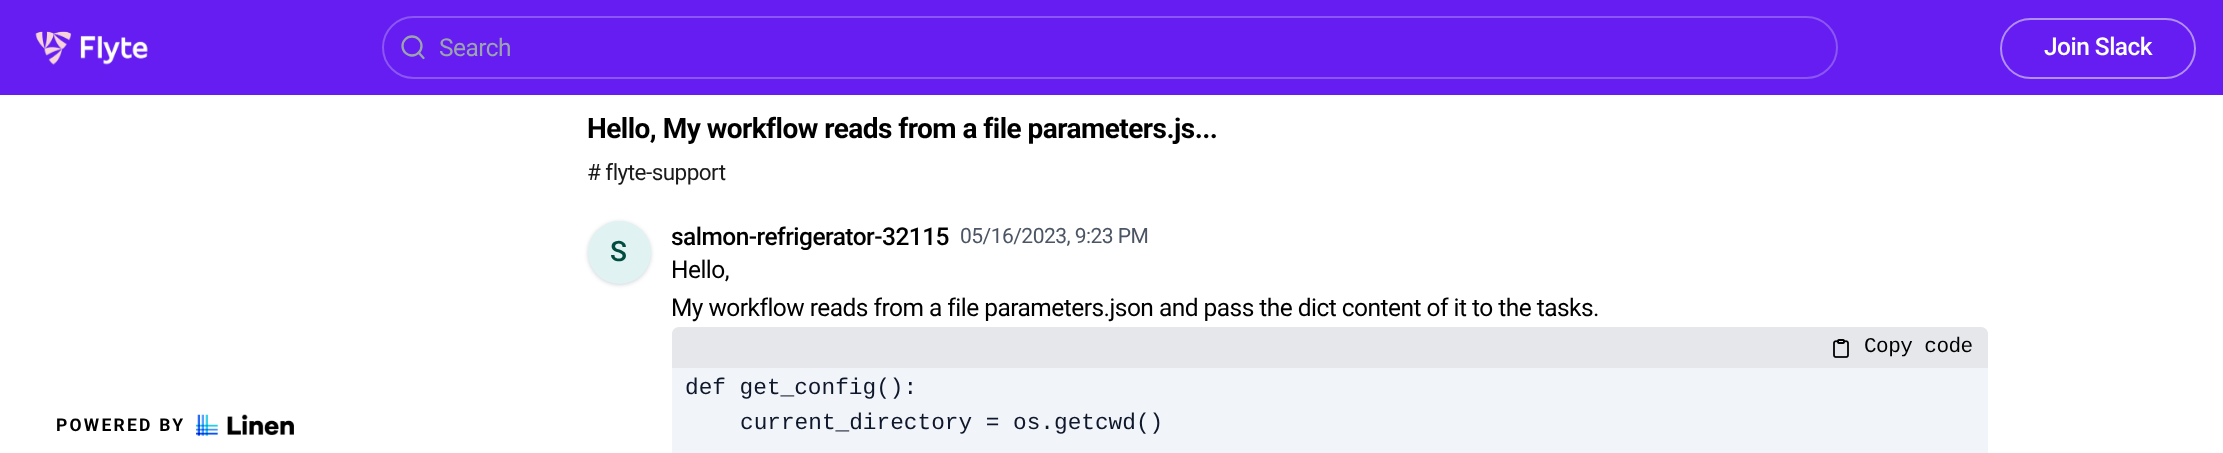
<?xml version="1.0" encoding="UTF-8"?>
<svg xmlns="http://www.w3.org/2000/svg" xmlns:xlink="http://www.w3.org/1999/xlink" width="2223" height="453">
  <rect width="100%" height="100%" fill="#ffffff" />
  <rect width="2223" height="95" fill="#651df1" />
  <image x="35" y="31" width="113" height="34" xlink:href="image1.png" />
  <rect x="383" y="17" width="1454" height="61" rx="30.5" fill="none" stroke="#8c56f5" stroke-width="2" />
  <circle cx="412" cy="46" r="9.5" fill="none" stroke="#9ca3af" stroke-width="2.3" />
  <path d="M 423.5 58 l -5 -5.5" fill="none" stroke="#9ca3af" stroke-width="2.3" stroke-linecap="round" stroke-linejoin="round" />
  <rect x="2001" y="19" width="194" height="59" rx="29.5" fill="none" stroke="#b28ef8" stroke-width="2" />
  <image x="196" y="414" width="98" height="22" xlink:href="image2.png" />
  <rect x="588" y="222" width="63" height="63" rx="31.5" fill="#d1d5db" filter="blur(2px)" />
  <circle cx="619.5" cy="252.5" r="31.5" fill="#e0f2f1" />
  <path d="M 679 327 h 1302 c 4 0 7 3 7 7 v 34 h -1316 v -34 c 0 -4 3 -7 7 -7 z" fill="#e5e7eb" />
  <image x="1833" y="339" width="16" height="19" xlink:href="image3.png" />
  <rect x="672" y="368" width="1316" height="85" fill="#f1f5f9" />
  <text x="439" y="56" style="font-family: Roboto; font-size: 24.5px; letter-spacing: -0.53px; fill: #9ca3af">Search</text>
  <text x="2044" y="55" style="font-family: Roboto; font-size: 24.5px; font-weight: 500; letter-spacing: -0.53px; fill: #ffffff">Join Slack</text>
  <text x="56" y="431" style="font-family: Roboto; font-size: 17.5px; font-weight: bold; letter-spacing: 2.25px; fill: #000000">POWERED BY</text>
  <text x="587" y="138" style="font-family: Roboto; font-size: 28px; font-weight: bold; letter-spacing: -0.53px; fill: #000000">Hello, My workflow reads from a file parameters.js...</text>
  <text x="587" y="180" style="font-family: Roboto; font-size: 22.5px; letter-spacing: -0.53px; fill: #1a1a1a"># flyte-support</text>
  <text x="610" y="261" style="font-family: Roboto; font-size: 28px; font-weight: 500; letter-spacing: -0.53px; fill: #004d40">S</text>
  <text x="671" y="245" style="font-family: Roboto; font-size: 24.5px; font-weight: 500; letter-spacing: -0.53px; fill: #000000">salmon-refrigerator-32115</text>
  <text x="960" y="243" style="font-family: Roboto; font-size: 21px; letter-spacing: -0.53px; fill: #4b5563">05/16/2023, 9:23 PM</text>
  <text x="671" y="278" style="font-family: Roboto; font-size: 24.5px; letter-spacing: -0.53px; fill: #000000">Hello,</text>
  <text x="671" y="316" style="font-family: Roboto; font-size: 24.5px; letter-spacing: -0.53px; fill: #000000">My workflow reads from a file parameters.json and pass the dict content of it to the tasks.</text>
  <text x="1864" y="352" style="font-family: Liberation Mono; font-size: 21px; letter-spacing: -0.53px; fill: #000000">Copy code</text>
  <text x="685" y="394" style="font-family: Liberation Mono; font-size: 22.75px; fill: #0f172a">def get_config():</text>
  <text x="740" y="429" style="font-family: Liberation Mono; font-size: 22.75px; fill: #0f172a">current_directory = os.getcwd()</text>
</svg>
